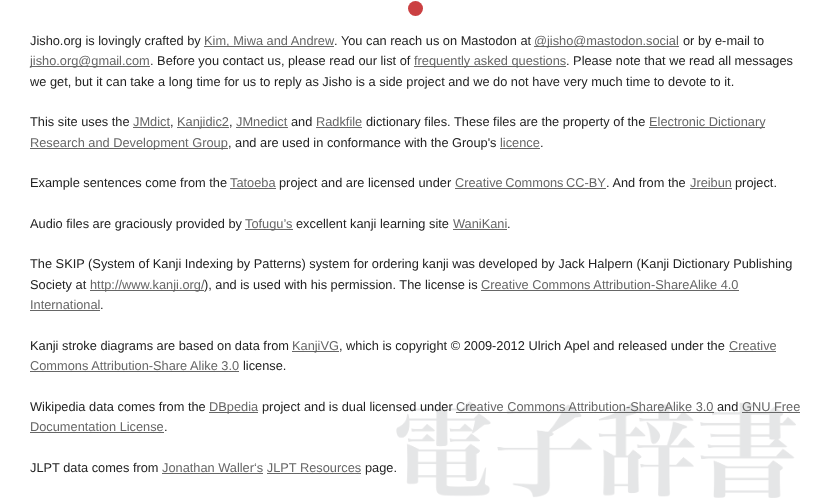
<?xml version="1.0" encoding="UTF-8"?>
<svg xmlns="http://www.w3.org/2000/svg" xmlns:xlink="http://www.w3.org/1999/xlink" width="831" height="498">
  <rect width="100%" height="100%" fill="#ffffff" />
  <image x="396" y="401" width="400" height="97" xlink:href="image1.png" />
  <circle cx="415.5" cy="8.5" r="7.5" fill="#cb4042" />
  <rect x="204" y="46" width="130" height="1" fill="#666666" />
  <rect x="534" y="46" width="145" height="1" fill="#666666" />
  <rect x="30" y="66" width="120" height="1" fill="#666666" />
  <rect x="414" y="66" width="152" height="1" fill="#666666" />
  <rect x="133" y="127" width="37" height="1" fill="#666666" />
  <rect x="177" y="127" width="52" height="1" fill="#666666" />
  <rect x="236" y="127" width="52" height="1" fill="#666666" />
  <rect x="316" y="127" width="46" height="1" fill="#666666" />
  <rect x="649" y="127" width="116" height="1" fill="#666666" />
  <rect x="30" y="148" width="198" height="1" fill="#666666" />
  <rect x="500" y="148" width="40" height="1" fill="#666666" />
  <rect x="230" y="188" width="46" height="1" fill="#666666" />
  <rect x="455" y="188" width="151" height="1" fill="#666666" />
  <rect x="690" y="188" width="42" height="1" fill="#666666" />
  <rect x="245" y="229" width="48" height="1" fill="#666666" />
  <rect x="453" y="229" width="54" height="1" fill="#666666" />
  <rect x="90" y="290" width="114" height="1" fill="#666666" />
  <rect x="481" y="290" width="258" height="1" fill="#666666" />
  <rect x="30" y="310" width="70" height="1" fill="#666666" />
  <rect x="292" y="351" width="47" height="1" fill="#666666" />
  <rect x="729" y="351" width="47" height="1" fill="#666666" />
  <rect x="30" y="371" width="209" height="1" fill="#666666" />
  <rect x="209" y="412" width="49" height="1" fill="#666666" />
  <rect x="456" y="412" width="258" height="1" fill="#666666" />
  <rect x="742" y="412" width="58" height="1" fill="#666666" />
  <rect x="30" y="432" width="134" height="1" fill="#666666" />
  <rect x="162" y="473" width="101" height="1" fill="#666666" />
  <rect x="267" y="473" width="94" height="1" fill="#666666" />
  <text x="30" y="45" style="font-family: Liberation Sans; font-size: 12.8px; fill: #222222">Jisho.org is lovingly crafted by</text>
  <text x="204" y="45" style="font-family: Liberation Sans; font-size: 12.8px; fill: #666666">Kim, Miwa and Andrew</text>
  <text x="334" y="45" style="font-family: Liberation Sans; font-size: 12.8px; fill: #222222">. You can reach us on Mastodon at</text>
  <text x="534" y="45" style="font-family: Liberation Sans; font-size: 12.8px; fill: #666666">@jisho@mastodon.social</text>
  <text x="683" y="45" style="font-family: Liberation Sans; font-size: 12.8px; fill: #222222">or by e-mail to</text>
  <text x="30" y="65" style="font-family: Liberation Sans; font-size: 12.8px; fill: #666666">jisho.org@gmail.com</text>
  <text x="150" y="65" style="font-family: Liberation Sans; font-size: 12.8px; fill: #222222">. Before you contact us, please read our list of</text>
  <text x="414" y="65" style="font-family: Liberation Sans; font-size: 12.8px; fill: #666666">frequently asked questions</text>
  <text x="566" y="65" style="font-family: Liberation Sans; font-size: 12.8px; fill: #222222">. Please note that we read all messages</text>
  <text x="30" y="86" style="font-family: Liberation Sans; font-size: 12.8px; fill: #222222">we get, but it can take a long time for us to reply as Jisho is a side project and we do not have very much time to devote to it.</text>
  <text x="30" y="126" style="font-family: Liberation Sans; font-size: 12.8px; fill: #222222">This site uses the</text>
  <text x="133" y="126" style="font-family: Liberation Sans; font-size: 12.8px; fill: #666666">JMdict</text>
  <text x="170" y="126" style="font-family: Liberation Sans; font-size: 12.8px; fill: #222222">,</text>
  <text x="177" y="126" style="font-family: Liberation Sans; font-size: 12.8px; fill: #666666">Kanjidic2</text>
  <text x="229" y="126" style="font-family: Liberation Sans; font-size: 12.8px; fill: #222222">,</text>
  <text x="236" y="126" style="font-family: Liberation Sans; font-size: 12.8px; fill: #666666">JMnedict</text>
  <text x="291" y="126" style="font-family: Liberation Sans; font-size: 12.8px; fill: #222222">and</text>
  <text x="316" y="126" style="font-family: Liberation Sans; font-size: 12.8px; fill: #666666">Radkfile</text>
  <text x="366" y="126" style="font-family: Liberation Sans; font-size: 12.8px; fill: #222222">dictionary files. These files are the property of the</text>
  <text x="649" y="126" style="font-family: Liberation Sans; font-size: 12.8px; fill: #666666">Electronic Dictionary</text>
  <text x="30" y="147" style="font-family: Liberation Sans; font-size: 12.8px; fill: #666666">Research and Development Group</text>
  <text x="228" y="147" style="font-family: Liberation Sans; font-size: 12.8px; fill: #222222">, and are used in conformance with the Group's</text>
  <text x="500" y="147" style="font-family: Liberation Sans; font-size: 12.8px; fill: #666666">licence</text>
  <text x="540" y="147" style="font-family: Liberation Sans; font-size: 12.8px; fill: #222222">.</text>
  <text x="30" y="187" style="font-family: Liberation Sans; font-size: 12.8px; fill: #222222">Example sentences come from the</text>
  <text x="230" y="187" style="font-family: Liberation Sans; font-size: 12.8px; fill: #666666">Tatoeba</text>
  <text x="279" y="187" style="font-family: Liberation Sans; font-size: 12.8px; fill: #222222">project and are licensed under</text>
  <text x="455" y="187" word-spacing="-1" style="font-family: Liberation Sans; font-size: 12.8px; fill: #666666">Creative Commons CC-BY</text>
  <text x="606" y="187" style="font-family: Liberation Sans; font-size: 12.8px; fill: #222222">. And from the</text>
  <text x="690" y="187" style="font-family: Liberation Sans; font-size: 12.8px; fill: #666666">Jreibun</text>
  <text x="735" y="187" style="font-family: Liberation Sans; font-size: 12.8px; fill: #222222">project.</text>
  <text x="30" y="228" style="font-family: Liberation Sans; font-size: 12.8px; fill: #222222">Audio files are graciously provided by</text>
  <text x="245" y="228" style="font-family: Liberation Sans; font-size: 12.8px; fill: #666666">Tofugu’s</text>
  <text x="296" y="228" style="font-family: Liberation Sans; font-size: 12.8px; fill: #222222">excellent kanji learning site</text>
  <text x="453" y="228" style="font-family: Liberation Sans; font-size: 12.8px; fill: #666666">WaniKani</text>
  <text x="507" y="228" style="font-family: Liberation Sans; font-size: 12.8px; fill: #222222">.</text>
  <text x="30" y="268" style="font-family: Liberation Sans; font-size: 12.8px; fill: #222222">The SKIP (System of Kanji Indexing by Patterns) system for ordering kanji was developed by Jack Halpern (Kanji Dictionary Publishing</text>
  <text x="30" y="289" style="font-family: Liberation Sans; font-size: 12.8px; fill: #222222">Society at</text>
  <text x="90" y="289" style="font-family: Liberation Sans; font-size: 12.8px; fill: #666666">http://www.kanji.org/</text>
  <text x="204" y="289" style="font-family: Liberation Sans; font-size: 12.8px; fill: #222222">), and is used with his permission. The license is</text>
  <text x="481" y="289" style="font-family: Liberation Sans; font-size: 12.8px; fill: #666666">Creative Commons Attribution-ShareAlike 4.0</text>
  <text x="30" y="309" style="font-family: Liberation Sans; font-size: 12.8px; fill: #666666">International</text>
  <text x="100" y="309" style="font-family: Liberation Sans; font-size: 12.8px; fill: #222222">.</text>
  <text x="30" y="350" style="font-family: Liberation Sans; font-size: 12.8px; fill: #222222">Kanji stroke diagrams are based on data from</text>
  <text x="292" y="350" style="font-family: Liberation Sans; font-size: 12.8px; fill: #666666">KanjiVG</text>
  <text x="339" y="350" style="font-family: Liberation Sans; font-size: 12.8px; fill: #222222">, which is copyright © 2009-2012 Ulrich Apel and released under the</text>
  <text x="729" y="350" style="font-family: Liberation Sans; font-size: 12.8px; fill: #666666">Creative</text>
  <text x="30" y="370" style="font-family: Liberation Sans; font-size: 12.8px; fill: #666666">Commons Attribution-Share Alike 3.0</text>
  <text x="243" y="370" style="font-family: Liberation Sans; font-size: 12.8px; fill: #222222">license.</text>
  <text x="30" y="411" style="font-family: Liberation Sans; font-size: 12.8px; fill: #222222">Wikipedia data comes from the</text>
  <text x="209" y="411" style="font-family: Liberation Sans; font-size: 12.8px; fill: #666666">DBpedia</text>
  <text x="262" y="411" style="font-family: Liberation Sans; font-size: 12.8px; fill: #222222">project and is dual licensed under</text>
  <text x="456" y="411" style="font-family: Liberation Sans; font-size: 12.8px; fill: #666666">Creative Commons Attribution-ShareAlike 3.0</text>
  <text x="717" y="411" style="font-family: Liberation Sans; font-size: 12.8px; fill: #222222">and</text>
  <text x="742" y="411" style="font-family: Liberation Sans; font-size: 12.8px; fill: #666666">GNU Free</text>
  <text x="30" y="431" style="font-family: Liberation Sans; font-size: 12.8px; fill: #666666">Documentation License</text>
  <text x="164" y="431" style="font-family: Liberation Sans; font-size: 12.8px; fill: #222222">.</text>
  <text x="30" y="472" style="font-family: Liberation Sans; font-size: 12.8px; fill: #222222">JLPT data comes from</text>
  <text x="162" y="472" style="font-family: Liberation Sans; font-size: 12.8px; fill: #666666">Jonathan Waller‘s JLPT Resources</text>
  <text x="365" y="472" style="font-family: Liberation Sans; font-size: 12.8px; fill: #222222">page.</text>
</svg>
